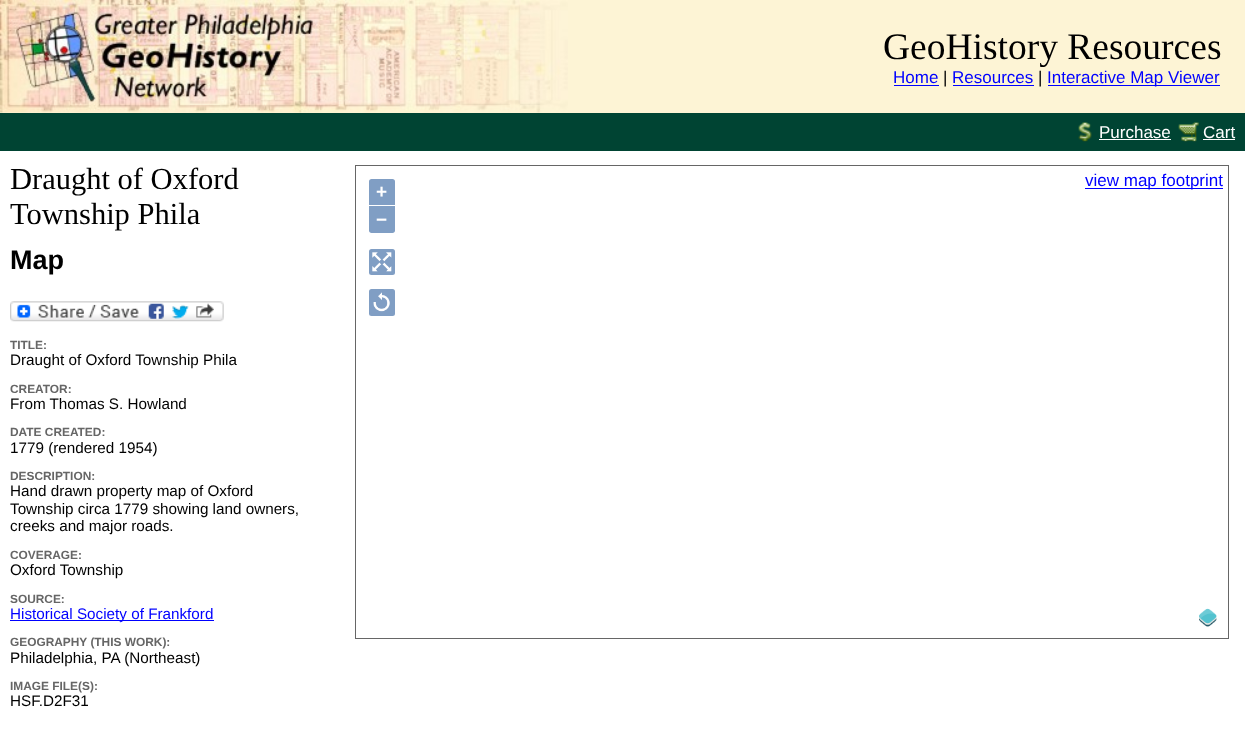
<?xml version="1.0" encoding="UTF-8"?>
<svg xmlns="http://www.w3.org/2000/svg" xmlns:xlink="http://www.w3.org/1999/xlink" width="1245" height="733">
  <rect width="100%" height="100%" fill="#ffffff" />
  <rect width="1245" height="113" fill="#fdf4d5" />
  <image x="0" y="0" width="568" height="113" xlink:href="image1.png" />
  <rect x="894" y="85" width="45" height="1" fill="#0000ff" />
  <rect x="953" y="85" width="81" height="1" fill="#0000ff" />
  <rect x="1048" y="85" width="172" height="1" fill="#0000ff" />
  <rect y="113" width="1245" height="38" fill="#004433" />
  <image x="1078" y="122" width="14" height="20" xlink:href="image2.png" />
  <rect x="1099" y="139" width="72" height="1" fill="#ffffff" />
  <image x="1178" y="122" width="21" height="20" xlink:href="image3.png" />
  <rect x="1203" y="139" width="32" height="1" fill="#ffffff" />
  <image x="10" y="301" width="214" height="21" xlink:href="image4.png" />
  <rect x="10" y="620" width="204" height="1" fill="#0000ff" />
  <rect x="355.5" y="165.5" width="873" height="473" fill="none" stroke="#666666" />
  <rect x="1085" y="188" width="138" height="1" fill="#0000ff" />
  <path d="M 371.5 179 h 21 c 1.5 0 2.5 1 2.5 2.5 v 23.5 h -26 v -23.5 c 0 -1.5 1 -2.5 2.5 -2.5 z" fill="#809ec4" />
  <path d="M 369 206 h 26 v 24.5 c 0 1.5 -1 2.5 -2.5 2.5 h -21 c -1.5 0 -2.5 -1 -2.5 -2.5 z" fill="#809ec4" />
  <rect x="369" y="249" width="26" height="26" rx="2.5" fill="#809ec4" />
  <image x="372" y="252" width="20" height="20" xlink:href="image5.png" />
  <rect x="369" y="289" width="26" height="27" rx="2.5" fill="#809ec4" />
  <image x="373" y="292" width="17" height="20" xlink:href="image6.png" />
  <image x="1199" y="608" width="18" height="19" xlink:href="image7.png" />
  <text x="883" y="59" style="font-family: Liberation Serif; font-size: 37.5px; fill: #000000">GeoHistory Resources</text>
  <text x="893" y="83" style="font-family: Liberation Sans; font-size: 17px; fill: #0000ff">Home</text>
  <text x="943" y="83" style="font-family: Liberation Sans; font-size: 17px; fill: #000000">|</text>
  <text x="952" y="83" style="font-family: Liberation Sans; font-size: 17px; fill: #0000ff">Resources</text>
  <text x="1038" y="83" style="font-family: Liberation Sans; font-size: 17px; fill: #000000">|</text>
  <text x="1047" y="83" style="font-family: Liberation Sans; font-size: 17px; fill: #0000ff">Interactive Map Viewer</text>
  <text x="1099" y="138" style="font-family: Liberation Sans; font-size: 17px; fill: #ffffff">Purchase</text>
  <text x="1203" y="138" style="font-family: Liberation Sans; font-size: 17px; fill: #ffffff">Cart</text>
  <text x="10" y="189" style="font-family: Liberation Serif; font-size: 30.5px; fill: #000000">Draught of Oxford</text>
  <text x="10" y="224" style="font-family: Liberation Serif; font-size: 30.5px; fill: #000000">Township Phila</text>
  <text x="10" y="269" style="font-family: Liberation Sans; font-size: 27px; font-weight: bold; fill: #000000">Map</text>
  <text x="10" y="349" style="font-family: Liberation Sans; font-size: 11.9px; font-weight: bold; fill: #666666">TITLE:</text>
  <text x="10" y="365" style="font-family: Liberation Sans; font-size: 15.25px; fill: #000000">Draught of Oxford Township Phila</text>
  <text x="10" y="393" style="font-family: Liberation Sans; font-size: 11.9px; font-weight: bold; fill: #666666">CREATOR:</text>
  <text x="10" y="409" style="font-family: Liberation Sans; font-size: 15.25px; fill: #000000">From Thomas S. Howland</text>
  <text x="10" y="436" style="font-family: Liberation Sans; font-size: 11.9px; font-weight: bold; fill: #666666">DATE CREATED:</text>
  <text x="10" y="453" style="font-family: Liberation Sans; font-size: 15.25px; fill: #000000">1779 (rendered 1954)</text>
  <text x="10" y="480" style="font-family: Liberation Sans; font-size: 11.9px; font-weight: bold; fill: #666666">DESCRIPTION:</text>
  <text x="10" y="496" style="font-family: Liberation Sans; font-size: 15.25px; fill: #000000">Hand drawn property map of Oxford</text>
  <text x="10" y="514" style="font-family: Liberation Sans; font-size: 15.25px; fill: #000000">Township circa 1779 showing land owners,</text>
  <text x="10" y="531" style="font-family: Liberation Sans; font-size: 15.25px; fill: #000000">creeks and major roads.</text>
  <text x="10" y="559" style="font-family: Liberation Sans; font-size: 11.9px; font-weight: bold; fill: #666666">COVERAGE:</text>
  <text x="10" y="575" style="font-family: Liberation Sans; font-size: 15.25px; fill: #000000">Oxford Township</text>
  <text x="10" y="603" style="font-family: Liberation Sans; font-size: 11.9px; font-weight: bold; fill: #666666">SOURCE:</text>
  <text x="10" y="619" style="font-family: Liberation Sans; font-size: 15.25px; fill: #0000ff">Historical Society of Frankford</text>
  <text x="10" y="646" style="font-family: Liberation Sans; font-size: 11.9px; font-weight: bold; fill: #666666">GEOGRAPHY (THIS WORK):</text>
  <text x="10" y="663" style="font-family: Liberation Sans; font-size: 15.25px; fill: #000000">Philadelphia, PA (Northeast)</text>
  <text x="10" y="690" style="font-family: Liberation Sans; font-size: 11.9px; font-weight: bold; fill: #666666">IMAGE FILE(S):</text>
  <text x="10" y="706" style="font-family: Liberation Sans; font-size: 15.25px; fill: #000000">HSF.D2F31</text>
  <text x="1085" y="186" style="font-family: Liberation Sans; font-size: 17px; fill: #0000ff">view map footprint</text>
  <text x="376" y="198" style="font-family: Liberation Sans; font-size: 19px; font-weight: bold; fill: #ffffff">+</text>
  <text x="376" y="226" style="font-family: Liberation Sans; font-size: 19px; font-weight: bold; fill: #ffffff">−</text>
</svg>
